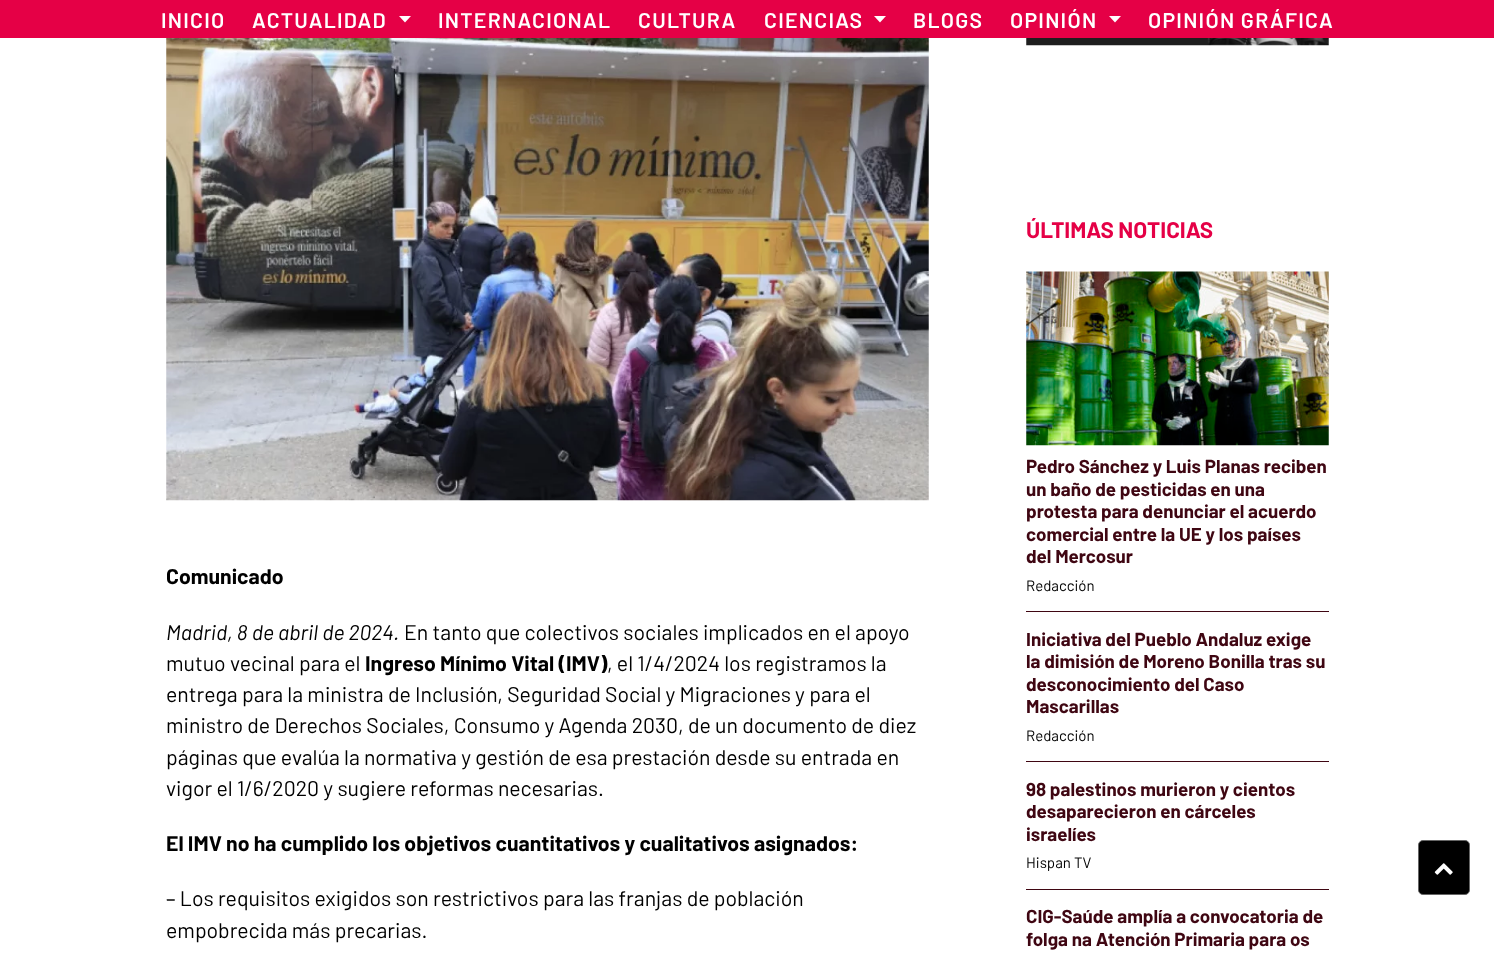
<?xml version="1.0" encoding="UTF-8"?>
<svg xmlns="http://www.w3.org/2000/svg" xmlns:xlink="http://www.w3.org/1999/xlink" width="1494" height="957">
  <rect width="100%" height="100%" fill="#ffffff" />
  <rect width="1494" height="38" fill="#e50046" />
  <path d="M 399 16 h 12 l -6 6.5 z" fill="#ffffff" />
  <path d="M 874 16 h 12 l -6 6.5 z" fill="#ffffff" />
  <path d="M 1109 16 h 12 l -6 6.5 z" fill="#ffffff" />
  <image x="166" y="38" width="763" height="463" xlink:href="image1.png" />
  <image x="1026" y="38" width="303" height="8" xlink:href="image2.png" />
  <image x="1026" y="271" width="303" height="175" xlink:href="image3.png" />
  <rect x="1026" y="611" width="303" height="1" fill="#3f0612" />
  <rect x="1026" y="761" width="303" height="1" fill="#3f0612" />
  <rect x="1026" y="889" width="303" height="1" fill="#3f0612" />
  <rect x="1418.5" y="840.5" width="51" height="54" rx="4.5" fill="#000000" stroke="#666666" />
  <image x="1434" y="863" width="19" height="12" xlink:href="image4.png" />
  <text x="161" y="28" style="font-family: Barlow; font-size: 21.25px; font-weight: 600; letter-spacing: 1.25px; fill: #ffffff">INICIO</text>
  <text x="252" y="28" style="font-family: Barlow; font-size: 21.25px; font-weight: 600; letter-spacing: 1.25px; fill: #ffffff">ACTUALIDAD</text>
  <text x="438" y="28" style="font-family: Barlow; font-size: 21.25px; font-weight: 600; letter-spacing: 1.25px; fill: #ffffff">INTERNACIONAL</text>
  <text x="638" y="28" style="font-family: Barlow; font-size: 21.25px; font-weight: 600; letter-spacing: 1.25px; fill: #ffffff">CULTURA</text>
  <text x="764" y="28" style="font-family: Barlow; font-size: 21.25px; font-weight: 600; letter-spacing: 1.25px; fill: #ffffff">CIENCIAS</text>
  <text x="913" y="28" style="font-family: Barlow; font-size: 21.25px; font-weight: 600; letter-spacing: 1.25px; fill: #ffffff">BLOGS</text>
  <text x="1010" y="28" style="font-family: Barlow; font-size: 21.25px; font-weight: 600; letter-spacing: 1.25px; fill: #ffffff">OPINIÓN</text>
  <text x="1148" y="28" style="font-family: Barlow; font-size: 21.25px; font-weight: 600; letter-spacing: 1.25px; fill: #ffffff">OPINIÓN GRÁFICA</text>
  <text x="166" y="584" style="font-family: Barlow; font-size: 21.25px; font-weight: bold; fill: #000000">Comunicado</text>
  <text x="166" y="640" style="font-family: Barlow; font-size: 21.25px; font-style: italic; fill: #000000">Madrid, 8 de abril de 2024.</text>
  <text x="404" y="640" style="font-family: Barlow; font-size: 21.25px; fill: #000000">En tanto que colectivos sociales implicados en el apoyo</text>
  <text x="166" y="671" style="font-family: Barlow; font-size: 21.25px; fill: #000000">mutuo vecinal para el</text>
  <text x="365" y="671" style="font-family: Barlow; font-size: 21.25px; font-weight: bold; fill: #000000">Ingreso Mínimo Vital (IMV)</text>
  <text x="607" y="671" style="font-family: Barlow; font-size: 21.25px; fill: #000000">, el 1/4/2024 los registramos la</text>
  <text x="166" y="702" style="font-family: Barlow; font-size: 21.25px; fill: #000000">entrega para la ministra de Inclusión, Seguridad Social y Migraciones y para el</text>
  <text x="166" y="733" style="font-family: Barlow; font-size: 21.25px; fill: #000000">ministro de Derechos Sociales, Consumo y Agenda 2030, de un documento de diez</text>
  <text x="166" y="765" style="font-family: Barlow; font-size: 21.25px; fill: #000000">páginas que evalúa la normativa y gestión de esa prestación desde su entrada en</text>
  <text x="166" y="796" style="font-family: Barlow; font-size: 21.25px; fill: #000000">vigor el 1/6/2020 y sugiere reformas necesarias.</text>
  <text x="166" y="851" style="font-family: Barlow; font-size: 21.25px; font-weight: bold; fill: #000000">El IMV no ha cumplido los objetivos cuantitativos y cualitativos asignados:</text>
  <text x="166" y="906" style="font-family: Barlow; font-size: 21.25px; fill: #000000">– Los requisitos exigidos son restrictivos para las franjas de población</text>
  <text x="166" y="938" style="font-family: Barlow; font-size: 21.25px; fill: #000000">empobrecida más precarias.</text>
  <text x="1026" y="238" style="font-family: Barlow; font-size: 22.5px; font-weight: bold; fill: #e50046">ÚLTIMAS NOTICIAS</text>
  <text x="1026" y="473" style="font-family: Barlow; font-size: 18.75px; font-weight: bold; fill: #3f0612">Pedro Sánchez y Luis Planas reciben</text>
  <text x="1026" y="496" style="font-family: Barlow; font-size: 18.75px; font-weight: bold; fill: #3f0612">un baño de pesticidas en una</text>
  <text x="1026" y="518" style="font-family: Barlow; font-size: 18.75px; font-weight: bold; fill: #3f0612">protesta para denunciar el acuerdo</text>
  <text x="1026" y="541" style="font-family: Barlow; font-size: 18.75px; font-weight: bold; fill: #3f0612">comercial entre la UE y los países</text>
  <text x="1026" y="563" style="font-family: Barlow; font-size: 18.75px; font-weight: bold; fill: #3f0612">del Mercosur</text>
  <text x="1026" y="591" style="font-family: Barlow; font-size: 15px; fill: #000000">Redacción</text>
  <text x="1026" y="646" style="font-family: Barlow; font-size: 18.75px; font-weight: bold; fill: #3f0612">Iniciativa del Pueblo Andaluz exige</text>
  <text x="1026" y="668" style="font-family: Barlow; font-size: 18.75px; font-weight: bold; fill: #3f0612">la dimisión de Moreno Bonilla tras su</text>
  <text x="1026" y="691" style="font-family: Barlow; font-size: 18.75px; font-weight: bold; fill: #3f0612">desconocimiento del Caso</text>
  <text x="1026" y="713" style="font-family: Barlow; font-size: 18.75px; font-weight: bold; fill: #3f0612">Mascarillas</text>
  <text x="1026" y="741" style="font-family: Barlow; font-size: 15px; fill: #000000">Redacción</text>
  <text x="1026" y="796" style="font-family: Barlow; font-size: 18.75px; font-weight: bold; fill: #3f0612">98 palestinos murieron y cientos</text>
  <text x="1026" y="818" style="font-family: Barlow; font-size: 18.75px; font-weight: bold; fill: #3f0612">desaparecieron en cárceles</text>
  <text x="1026" y="841" style="font-family: Barlow; font-size: 18.75px; font-weight: bold; fill: #3f0612">israelíes</text>
  <text x="1026" y="868" style="font-family: Barlow; font-size: 15px; fill: #000000">Hispan TV</text>
  <text x="1026" y="923" style="font-family: Barlow; font-size: 18.75px; font-weight: bold; fill: #3f0612">CIG-Saúde amplía a convocatoria de</text>
  <text x="1026" y="946" style="font-family: Barlow; font-size: 18.75px; font-weight: bold; fill: #3f0612">folga na Atención Primaria para os</text>
</svg>
